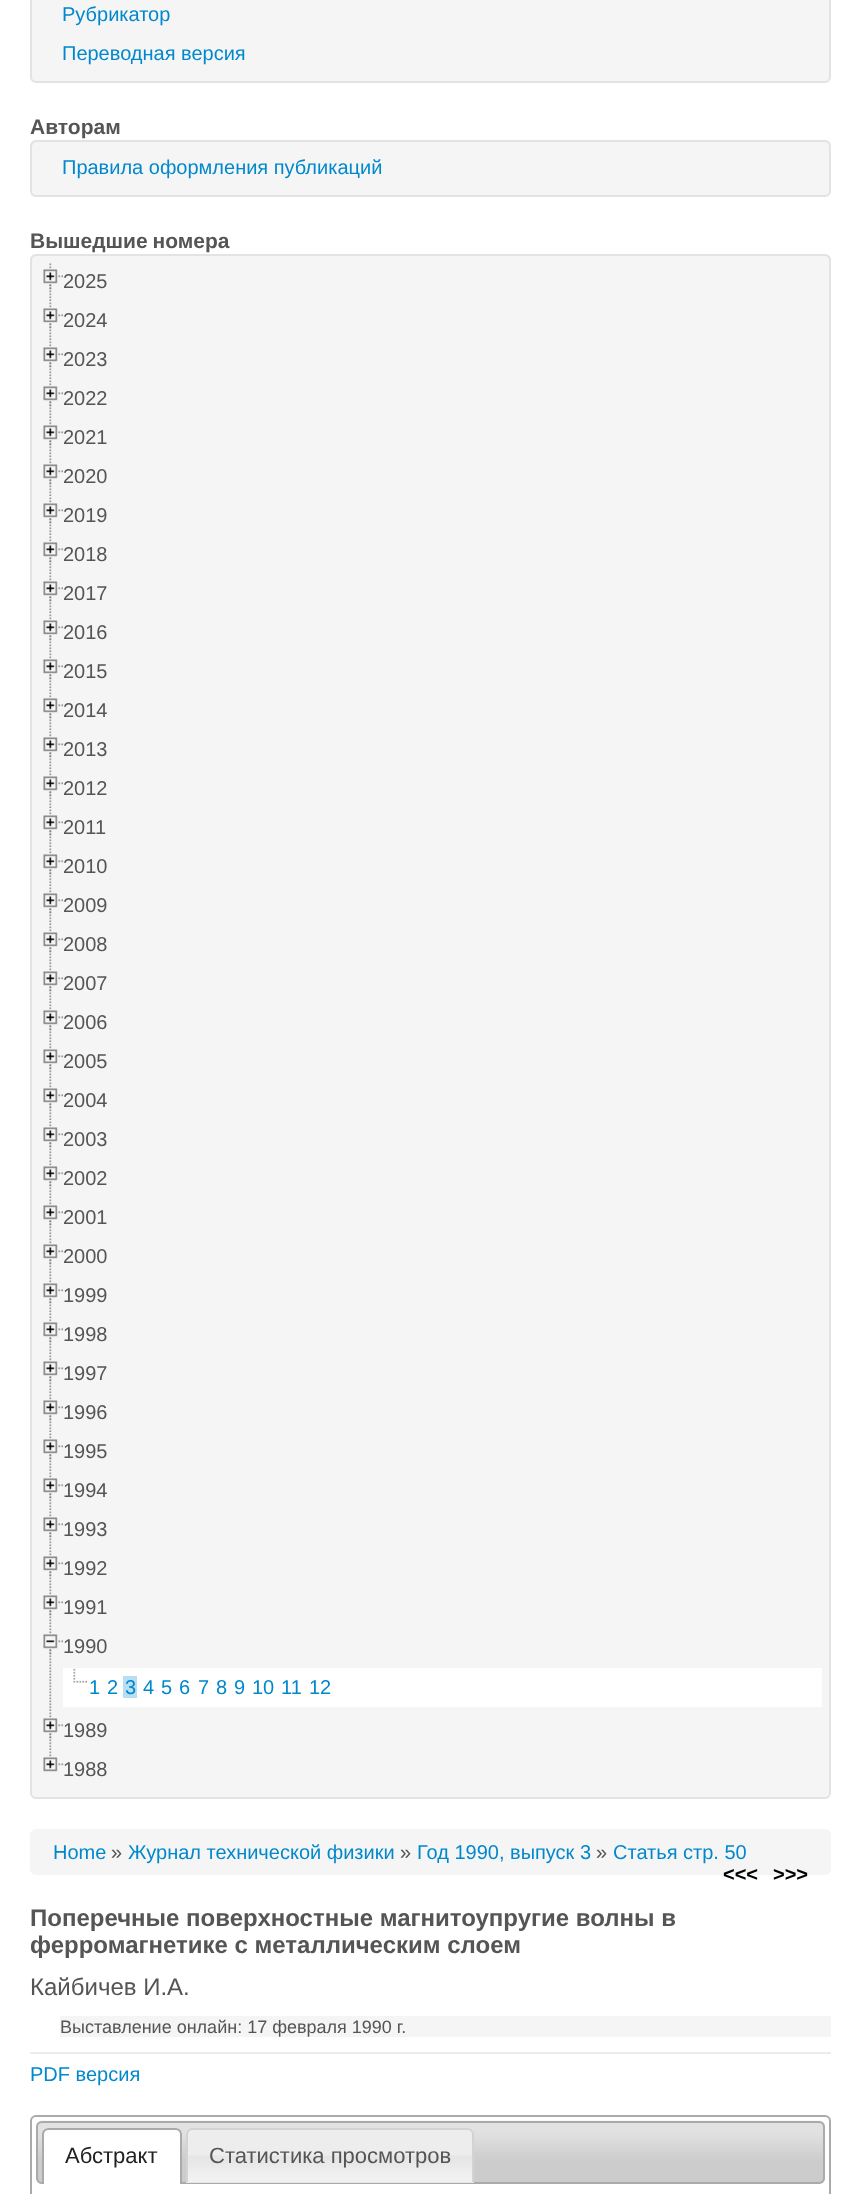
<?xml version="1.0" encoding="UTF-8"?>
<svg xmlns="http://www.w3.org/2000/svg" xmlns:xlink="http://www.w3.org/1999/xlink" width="860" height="2194">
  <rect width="100%" height="100%" fill="#ffffff" />
  <rect x="31" y="-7" width="799" height="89" rx="5" fill="#f5f5f5" stroke="#e3e3e3" stroke-width="2" />
  <rect x="30" y="140" width="801" height="57" rx="6" fill="#f5f5f5" />
  <path d="M 36 142 h 789 c 2 0 5 3 5 5 v -1 c 0 -3 -2 -5 -5 -5 h -788 c -3 0 -5 2 -5 5 v 1 c 0 -2 2 -5 4 -5 z" fill="#e9e9e9" />
  <rect x="31" y="141" width="799" height="55" rx="5" fill="none" stroke="#e3e3e3" stroke-width="2" />
  <rect x="30" y="254" width="801" height="1545" rx="6" fill="#f5f5f5" />
  <path d="M 36 256 h 789 c 2 0 5 3 5 5 v -1 c 0 -3 -2 -5 -5 -5 h -788 c -3 0 -5 2 -5 5 v 1 c 0 -2 2 -5 4 -5 z" fill="#e9e9e9" />
  <rect x="31" y="255" width="799" height="1543" rx="5" fill="none" stroke="#e3e3e3" stroke-width="2" />
  <image x="49" y="263" width="3" height="38" xlink:href="image1.png" />
  <image x="43" y="269" width="20" height="21" xlink:href="image2.png" />
  <image x="49" y="302" width="3" height="38" xlink:href="image1.png" />
  <image x="43" y="308" width="20" height="21" xlink:href="image2.png" />
  <image x="49" y="341" width="3" height="38" xlink:href="image1.png" />
  <image x="43" y="347" width="20" height="21" xlink:href="image2.png" />
  <image x="49" y="380" width="3" height="38" xlink:href="image1.png" />
  <image x="43" y="386" width="20" height="21" xlink:href="image2.png" />
  <image x="49" y="419" width="3" height="38" xlink:href="image1.png" />
  <image x="43" y="425" width="20" height="21" xlink:href="image2.png" />
  <image x="49" y="458" width="3" height="38" xlink:href="image1.png" />
  <image x="43" y="464" width="20" height="21" xlink:href="image2.png" />
  <image x="49" y="497" width="3" height="38" xlink:href="image1.png" />
  <image x="43" y="503" width="20" height="21" xlink:href="image2.png" />
  <image x="49" y="536" width="3" height="38" xlink:href="image1.png" />
  <image x="43" y="542" width="20" height="21" xlink:href="image2.png" />
  <image x="49" y="575" width="3" height="38" xlink:href="image1.png" />
  <image x="43" y="581" width="20" height="21" xlink:href="image2.png" />
  <image x="49" y="614" width="3" height="38" xlink:href="image1.png" />
  <image x="43" y="620" width="20" height="21" xlink:href="image2.png" />
  <image x="49" y="653" width="3" height="38" xlink:href="image1.png" />
  <image x="43" y="659" width="20" height="21" xlink:href="image2.png" />
  <image x="49" y="692" width="3" height="38" xlink:href="image1.png" />
  <image x="43" y="698" width="20" height="21" xlink:href="image2.png" />
  <image x="49" y="731" width="3" height="38" xlink:href="image1.png" />
  <image x="43" y="737" width="20" height="21" xlink:href="image2.png" />
  <image x="49" y="770" width="3" height="38" xlink:href="image1.png" />
  <image x="43" y="776" width="20" height="21" xlink:href="image2.png" />
  <image x="49" y="809" width="3" height="38" xlink:href="image1.png" />
  <image x="43" y="815" width="20" height="21" xlink:href="image2.png" />
  <image x="49" y="848" width="3" height="38" xlink:href="image1.png" />
  <image x="43" y="854" width="20" height="21" xlink:href="image2.png" />
  <image x="49" y="887" width="3" height="38" xlink:href="image1.png" />
  <image x="43" y="893" width="20" height="21" xlink:href="image2.png" />
  <image x="49" y="926" width="3" height="38" xlink:href="image1.png" />
  <image x="43" y="932" width="20" height="21" xlink:href="image2.png" />
  <image x="49" y="965" width="3" height="38" xlink:href="image1.png" />
  <image x="43" y="971" width="20" height="21" xlink:href="image2.png" />
  <image x="49" y="1004" width="3" height="38" xlink:href="image1.png" />
  <image x="43" y="1010" width="20" height="21" xlink:href="image2.png" />
  <image x="49" y="1043" width="3" height="38" xlink:href="image1.png" />
  <image x="43" y="1049" width="20" height="21" xlink:href="image2.png" />
  <image x="49" y="1082" width="3" height="38" xlink:href="image1.png" />
  <image x="43" y="1088" width="20" height="21" xlink:href="image2.png" />
  <image x="49" y="1121" width="3" height="38" xlink:href="image1.png" />
  <image x="43" y="1127" width="20" height="21" xlink:href="image2.png" />
  <image x="49" y="1160" width="3" height="38" xlink:href="image1.png" />
  <image x="43" y="1166" width="20" height="21" xlink:href="image2.png" />
  <image x="49" y="1199" width="3" height="38" xlink:href="image1.png" />
  <image x="43" y="1205" width="20" height="21" xlink:href="image2.png" />
  <image x="49" y="1238" width="3" height="38" xlink:href="image1.png" />
  <image x="43" y="1244" width="20" height="21" xlink:href="image2.png" />
  <image x="49" y="1277" width="3" height="38" xlink:href="image1.png" />
  <image x="43" y="1283" width="20" height="21" xlink:href="image2.png" />
  <image x="49" y="1316" width="3" height="38" xlink:href="image1.png" />
  <image x="43" y="1322" width="20" height="21" xlink:href="image2.png" />
  <image x="49" y="1355" width="3" height="38" xlink:href="image1.png" />
  <image x="43" y="1361" width="20" height="21" xlink:href="image2.png" />
  <image x="49" y="1394" width="3" height="38" xlink:href="image1.png" />
  <image x="43" y="1400" width="20" height="21" xlink:href="image2.png" />
  <image x="49" y="1433" width="3" height="38" xlink:href="image1.png" />
  <image x="43" y="1439" width="20" height="21" xlink:href="image2.png" />
  <image x="49" y="1472" width="3" height="38" xlink:href="image1.png" />
  <image x="43" y="1478" width="20" height="21" xlink:href="image2.png" />
  <image x="49" y="1511" width="3" height="38" xlink:href="image1.png" />
  <image x="43" y="1517" width="20" height="21" xlink:href="image2.png" />
  <image x="49" y="1550" width="3" height="38" xlink:href="image1.png" />
  <image x="43" y="1556" width="20" height="21" xlink:href="image2.png" />
  <image x="49" y="1589" width="3" height="38" xlink:href="image1.png" />
  <image x="43" y="1595" width="20" height="21" xlink:href="image2.png" />
  <image x="49" y="1628" width="3" height="83" xlink:href="image3.png" />
  <image x="43" y="1634" width="20" height="21" xlink:href="image4.png" />
  <rect x="63" y="1668" width="759" height="39" fill="#ffffff" />
  <image x="73" y="1668" width="14" height="15" xlink:href="image5.png" />
  <rect x="123" y="1676" width="14" height="22" fill="#b7def1" />
  <image x="49" y="1712" width="3" height="38" xlink:href="image1.png" />
  <image x="43" y="1718" width="20" height="21" xlink:href="image2.png" />
  <image x="43" y="1751" width="21" height="21" xlink:href="image6.png" />
  <rect x="30" y="1829" width="801" height="46" rx="6" fill="#f5f5f5" />
  <rect x="60" y="2016" width="771" height="21" fill="#f5f5f5" />
  <rect x="30" y="2052" width="801" height="2" fill="#ececec" />
  <rect x="31" y="2116" width="799" height="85" rx="5" fill="none" stroke="#aaaaaa" stroke-width="2" />
  <rect x="36" y="2121" width="789" height="63" rx="6" fill="#cccccc" />
  <image x="36" y="2120" width="789" height="61" xlink:href="image7.png" />
  <rect x="37" y="2122" width="787" height="61" rx="5" fill="none" stroke="#aaaaaa" stroke-width="2" />
  <path d="M 48 2129 h 128 c 3.5 0 6 2.5 6 6 v 49 h -140 v -49 c 0 -3.5 2.5 -6 6 -6 z" fill="#ffffff" />
  <image x="42" y="2128" width="139" height="6" xlink:href="image8.png" />
  <path d="M 48 2128 h 128 c 3 0 6 3 6 6 v 50 h -140 v -50 c 0 -3 3 -6 6 -6 z m 0 2 h 128 c 2 0 4 2 4 4 v 50 h -136 v -50 c 0 -2 2 -4 4 -4 z" fill="#aaaaaa" fill-rule="evenodd" />
  <path d="M 192 2129 h 276 c 3.5 0 6 2.5 6 6 v 48 h -288 v -48 c 0 -3.5 2.5 -6 6 -6 z" fill="#e6e6e6" />
  <image x="186" y="2128" width="288" height="54" xlink:href="image9.png" />
  <path d="M 192 2128 h 276 c 3 0 6 3 6 6 v 48 h -288 v -48 c 0 -3 3 -6 6 -6 z m 0 2 h 276 c 2 0 4 2 4 4 v 48 h -284 v -48 c 0 -2 2 -4 4 -4 z" fill="#d3d3d3" fill-rule="evenodd" />
  <text x="62" y="21" style="font-family: Liberation Sans; font-size: 20px; fill: #0088cc">Рубрикатор</text>
  <text x="62" y="60" style="font-family: Liberation Sans; font-size: 20px; fill: #0088cc">Переводная версия</text>
  <text x="30" y="134" style="font-family: Liberation Sans; font-size: 21px; font-weight: bold; fill: #555555">Авторам</text>
  <text x="62" y="174" style="font-family: Liberation Sans; font-size: 20px; fill: #0088cc">Правила оформления публикаций</text>
  <text x="30" y="248" word-spacing="-1" style="font-family: Liberation Sans; font-size: 21px; font-weight: bold; fill: #555555">Вышедшие номера</text>
  <text x="63" y="288" style="font-family: Liberation Sans; font-size: 20px; fill: #555555">2025</text>
  <text x="63" y="327" style="font-family: Liberation Sans; font-size: 20px; fill: #555555">2024</text>
  <text x="63" y="366" style="font-family: Liberation Sans; font-size: 20px; fill: #555555">2023</text>
  <text x="63" y="405" style="font-family: Liberation Sans; font-size: 20px; fill: #555555">2022</text>
  <text x="63" y="444" style="font-family: Liberation Sans; font-size: 20px; fill: #555555">2021</text>
  <text x="63" y="483" style="font-family: Liberation Sans; font-size: 20px; fill: #555555">2020</text>
  <text x="63" y="522" style="font-family: Liberation Sans; font-size: 20px; fill: #555555">2019</text>
  <text x="63" y="561" style="font-family: Liberation Sans; font-size: 20px; fill: #555555">2018</text>
  <text x="63" y="600" style="font-family: Liberation Sans; font-size: 20px; fill: #555555">2017</text>
  <text x="63" y="639" style="font-family: Liberation Sans; font-size: 20px; fill: #555555">2016</text>
  <text x="63" y="678" style="font-family: Liberation Sans; font-size: 20px; fill: #555555">2015</text>
  <text x="63" y="717" style="font-family: Liberation Sans; font-size: 20px; fill: #555555">2014</text>
  <text x="63" y="756" style="font-family: Liberation Sans; font-size: 20px; fill: #555555">2013</text>
  <text x="63" y="795" style="font-family: Liberation Sans; font-size: 20px; fill: #555555">2012</text>
  <text x="63" y="834" style="font-family: Liberation Sans; font-size: 20px; fill: #555555">2011</text>
  <text x="63" y="873" style="font-family: Liberation Sans; font-size: 20px; fill: #555555">2010</text>
  <text x="63" y="912" style="font-family: Liberation Sans; font-size: 20px; fill: #555555">2009</text>
  <text x="63" y="951" style="font-family: Liberation Sans; font-size: 20px; fill: #555555">2008</text>
  <text x="63" y="990" style="font-family: Liberation Sans; font-size: 20px; fill: #555555">2007</text>
  <text x="63" y="1029" style="font-family: Liberation Sans; font-size: 20px; fill: #555555">2006</text>
  <text x="63" y="1068" style="font-family: Liberation Sans; font-size: 20px; fill: #555555">2005</text>
  <text x="63" y="1107" style="font-family: Liberation Sans; font-size: 20px; fill: #555555">2004</text>
  <text x="63" y="1146" style="font-family: Liberation Sans; font-size: 20px; fill: #555555">2003</text>
  <text x="63" y="1185" style="font-family: Liberation Sans; font-size: 20px; fill: #555555">2002</text>
  <text x="63" y="1224" style="font-family: Liberation Sans; font-size: 20px; fill: #555555">2001</text>
  <text x="63" y="1263" style="font-family: Liberation Sans; font-size: 20px; fill: #555555">2000</text>
  <text x="63" y="1302" style="font-family: Liberation Sans; font-size: 20px; fill: #555555">1999</text>
  <text x="63" y="1341" style="font-family: Liberation Sans; font-size: 20px; fill: #555555">1998</text>
  <text x="63" y="1380" style="font-family: Liberation Sans; font-size: 20px; fill: #555555">1997</text>
  <text x="63" y="1419" style="font-family: Liberation Sans; font-size: 20px; fill: #555555">1996</text>
  <text x="63" y="1458" style="font-family: Liberation Sans; font-size: 20px; fill: #555555">1995</text>
  <text x="63" y="1497" style="font-family: Liberation Sans; font-size: 20px; fill: #555555">1994</text>
  <text x="63" y="1536" style="font-family: Liberation Sans; font-size: 20px; fill: #555555">1993</text>
  <text x="63" y="1575" style="font-family: Liberation Sans; font-size: 20px; fill: #555555">1992</text>
  <text x="63" y="1614" style="font-family: Liberation Sans; font-size: 20px; fill: #555555">1991</text>
  <text x="63" y="1653" style="font-family: Liberation Sans; font-size: 20px; fill: #555555">1990</text>
  <text x="89" y="1694" style="font-family: Liberation Sans; font-size: 20px; fill: #0088cc">1</text>
  <text x="107" y="1694" style="font-family: Liberation Sans; font-size: 20px; fill: #0088cc">2</text>
  <text x="125" y="1694" style="font-family: Liberation Sans; font-size: 20px; fill: #0088cc">3</text>
  <text x="143" y="1694" style="font-family: Liberation Sans; font-size: 20px; fill: #0088cc">4</text>
  <text x="161" y="1694" style="font-family: Liberation Sans; font-size: 20px; fill: #0088cc">5</text>
  <text x="179" y="1694" style="font-family: Liberation Sans; font-size: 20px; fill: #0088cc">6</text>
  <text x="198" y="1694" style="font-family: Liberation Sans; font-size: 20px; fill: #0088cc">7</text>
  <text x="216" y="1694" style="font-family: Liberation Sans; font-size: 20px; fill: #0088cc">8</text>
  <text x="234" y="1694" style="font-family: Liberation Sans; font-size: 20px; fill: #0088cc">9</text>
  <text x="252" y="1694" style="font-family: Liberation Sans; font-size: 20px; fill: #0088cc">10</text>
  <text x="281" y="1694" style="font-family: Liberation Sans; font-size: 20px; fill: #0088cc">11</text>
  <text x="309" y="1694" style="font-family: Liberation Sans; font-size: 20px; fill: #0088cc">12</text>
  <text x="63" y="1737" style="font-family: Liberation Sans; font-size: 20px; fill: #555555">1989</text>
  <text x="63" y="1776" style="font-family: Liberation Sans; font-size: 20px; fill: #555555">1988</text>
  <text x="53" y="1859" style="font-family: Liberation Sans; font-size: 20px; fill: #0088cc">Home</text>
  <text x="111" y="1859" style="font-family: Liberation Sans; font-size: 20px; fill: #555555">»</text>
  <text x="128" y="1859" style="font-family: Liberation Sans; font-size: 20px; fill: #0088cc">Журнал технической физики</text>
  <text x="400" y="1859" style="font-family: Liberation Sans; font-size: 20px; fill: #555555">»</text>
  <text x="417" y="1859" style="font-family: Liberation Sans; font-size: 20px; fill: #0088cc">Год 1990, выпуск 3</text>
  <text x="596" y="1859" style="font-family: Liberation Sans; font-size: 20px; fill: #555555">»</text>
  <text x="613" y="1859" style="font-family: Liberation Sans; font-size: 20px; fill: #0088cc">Статья стр. 50</text>
  <text x="723" y="1881" style="font-family: Liberation Sans; font-size: 20px; font-weight: bold; fill: #000000">&lt;&lt;&lt;</text>
  <text x="773" y="1881" style="font-family: Liberation Sans; font-size: 20px; font-weight: bold; fill: #000000">&gt;&gt;&gt;</text>
  <text x="30" y="1926" style="font-family: Liberation Sans; font-size: 24px; font-weight: bold; fill: #555555">Поперечные поверхностные магнитоупругие волны в</text>
  <text x="30" y="1953" style="font-family: Liberation Sans; font-size: 24px; font-weight: bold; fill: #555555">ферромагнетике с металлическим слоем</text>
  <text x="30" y="1995" style="font-family: Liberation Sans; font-size: 24px; fill: #555555">Кайбичев И.А.</text>
  <text x="60" y="2033" style="font-family: Liberation Sans; font-size: 18px; fill: #555555">Выставление онлайн: 17 февраля 1990 г.</text>
  <text x="30" y="2081" style="font-family: Liberation Sans; font-size: 20px; fill: #0088cc">PDF версия</text>
  <text x="65" y="2163" style="font-family: Liberation Sans; font-size: 22px; fill: #212121">Абстракт</text>
  <text x="209" y="2163" style="font-family: Liberation Sans; font-size: 22px; fill: #555555">Статистика просмотров</text>
</svg>
